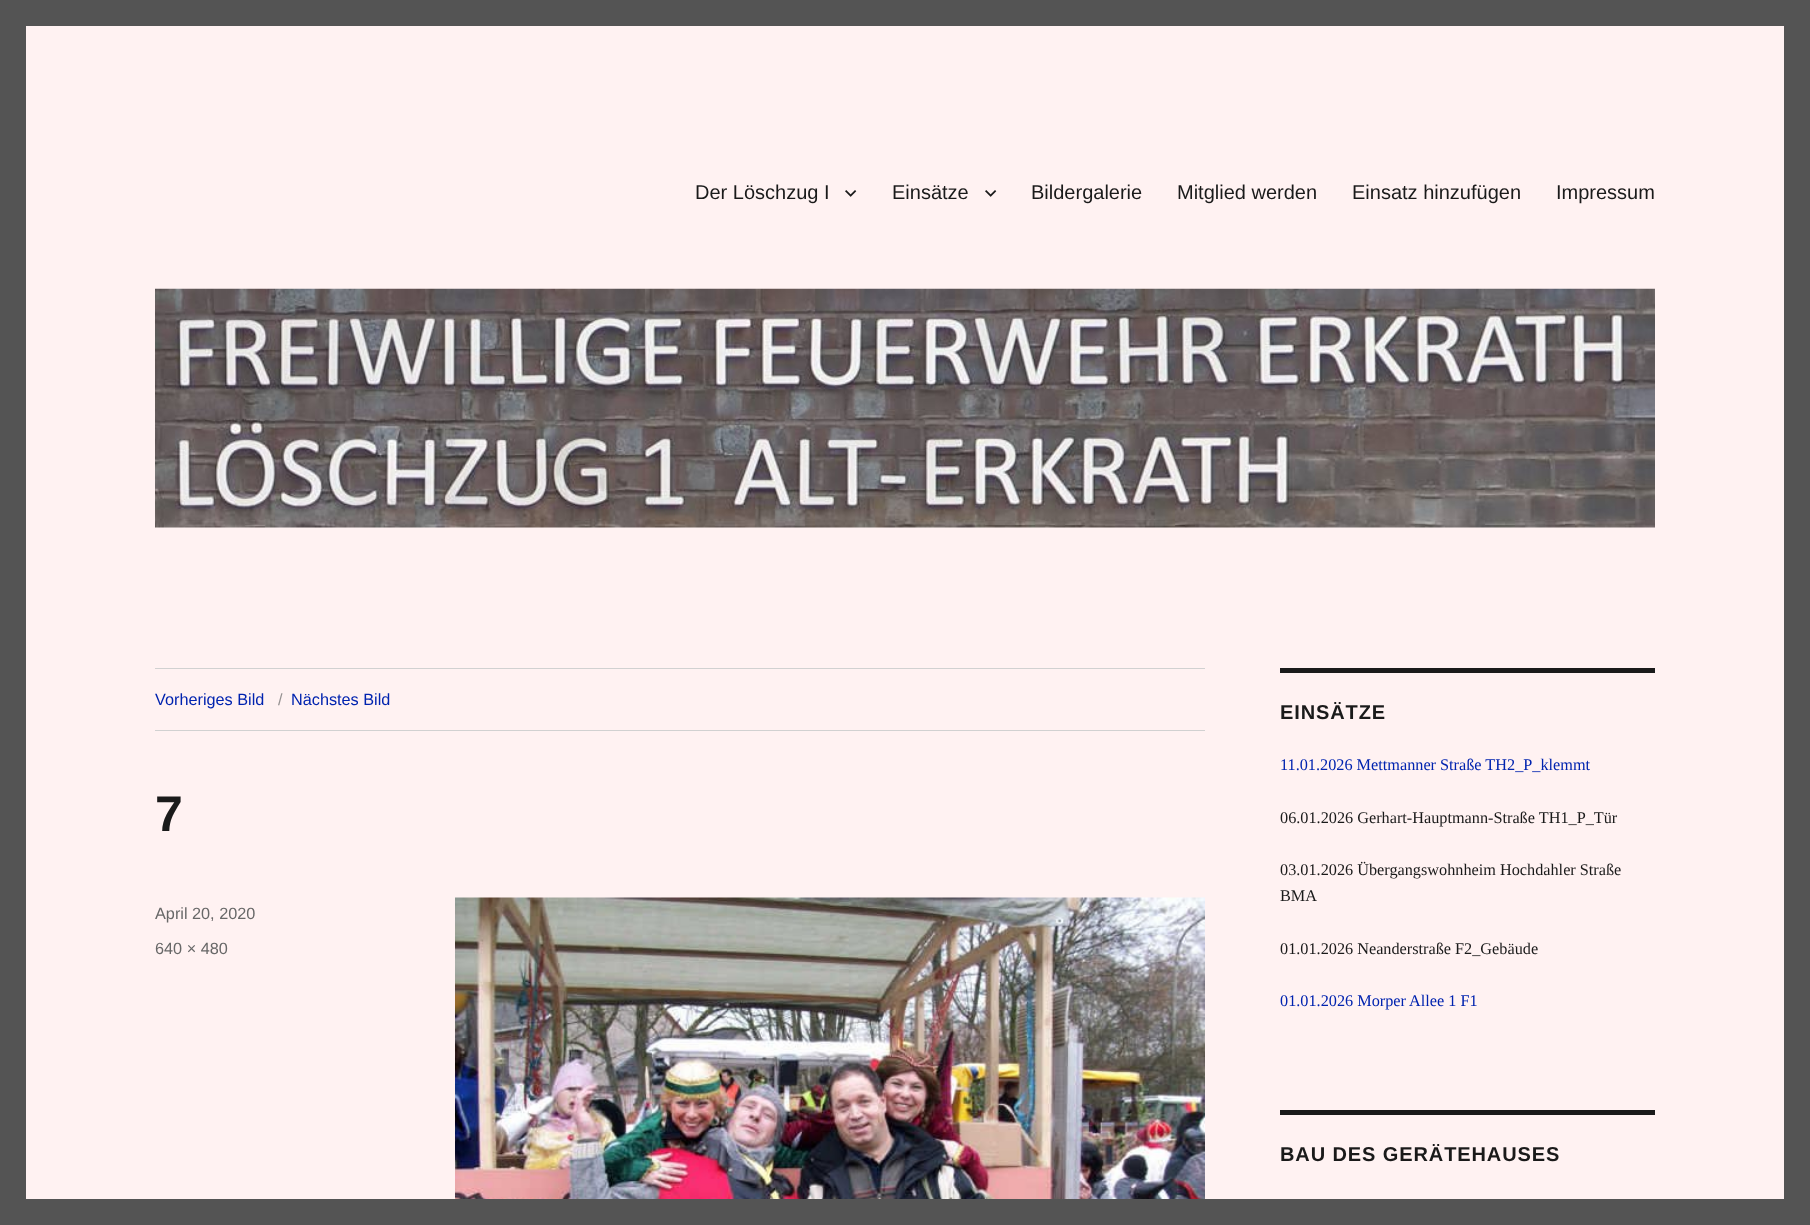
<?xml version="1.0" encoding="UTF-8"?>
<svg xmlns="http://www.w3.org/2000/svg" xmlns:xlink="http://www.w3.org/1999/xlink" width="1810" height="1225">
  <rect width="100%" height="100%" fill="#545454" />
  <rect x="26" y="26" width="1758" height="1173" fill="#fff2f2" />
  <image x="845" y="190" width="12" height="7" xlink:href="image1.png" />
  <image x="985" y="190" width="12" height="7" xlink:href="image1.png" />
  <image x="155" y="288" width="1500" height="240" xlink:href="image2.png" />
  <rect x="155" y="668" width="1050" height="1" fill="#d1d1d1" />
  <rect x="155" y="730" width="1050" height="1" fill="#d1d1d1" />
  <image x="455" y="897" width="750" height="302" xlink:href="image3.png" />
  <rect x="1280" y="668" width="375" height="5" fill="#1a1a1a" />
  <rect x="1280" y="1110" width="375" height="5" fill="#1a1a1a" />
  <text x="695" y="199" style="font-family: Liberation Sans; font-size: 20px; fill: #1a1a1a">Der Löschzug I</text>
  <text x="892" y="199" style="font-family: Liberation Sans; font-size: 20px; fill: #1a1a1a">Einsätze</text>
  <text x="1031" y="199" style="font-family: Liberation Sans; font-size: 20px; fill: #1a1a1a">Bildergalerie</text>
  <text x="1177" y="199" style="font-family: Liberation Sans; font-size: 20px; fill: #1a1a1a">Mitglied werden</text>
  <text x="1352" y="199" style="font-family: Liberation Sans; font-size: 20px; fill: #1a1a1a">Einsatz hinzufügen</text>
  <text x="1556" y="199" style="font-family: Liberation Sans; font-size: 20px; fill: #1a1a1a">Impressum</text>
  <text x="155" y="705" style="font-family: Liberation Sans; font-size: 16.25px; fill: #0023af">Vorheriges Bild</text>
  <text x="278" y="705" style="font-family: Liberation Sans; font-size: 16.25px; fill: #959191">/</text>
  <text x="291" y="705" style="font-family: Liberation Sans; font-size: 16.25px; fill: #0023af">Nächstes Bild</text>
  <text x="155" y="831" style="font-family: Liberation Sans; font-size: 50px; font-weight: bold; fill: #1a1a1a">7</text>
  <text x="155" y="919" style="font-family: Liberation Sans; font-size: 16.25px; fill: #686868">April 20, 2020</text>
  <text x="155" y="954" style="font-family: Liberation Sans; font-size: 16.25px; fill: #686868">640 × 480</text>
  <text x="1280" y="719" style="font-family: Liberation Sans; font-size: 20px; font-weight: bold; letter-spacing: 0.9px; fill: #1a1a1a">EINSÄTZE</text>
  <text x="1280" y="770" style="font-family: Liberation Serif; font-size: 16.25px; fill: #0023af">11.01.2026 Mettmanner Straße TH2_P_klemmt</text>
  <text x="1280" y="823" style="font-family: Liberation Serif; font-size: 16.25px; fill: #1a1a1a">06.01.2026 Gerhart-Hauptmann-Straße TH1_P_Tür</text>
  <text x="1280" y="875" style="font-family: Liberation Serif; font-size: 16.25px; fill: #1a1a1a">03.01.2026 Übergangswohnheim Hochdahler Straße</text>
  <text x="1280" y="901" style="font-family: Liberation Serif; font-size: 16.25px; fill: #1a1a1a">BMA</text>
  <text x="1280" y="954" style="font-family: Liberation Serif; font-size: 16.25px; fill: #1a1a1a">01.01.2026 Neanderstraße F2_Gebäude</text>
  <text x="1280" y="1006" style="font-family: Liberation Serif; font-size: 16.25px; fill: #0023af">01.01.2026 Morper Allee 1 F1</text>
  <text x="1280" y="1161" style="font-family: Liberation Sans; font-size: 20px; font-weight: bold; letter-spacing: 0.9px; fill: #1a1a1a">BAU DES GERÄTEHAUSES</text>
</svg>
